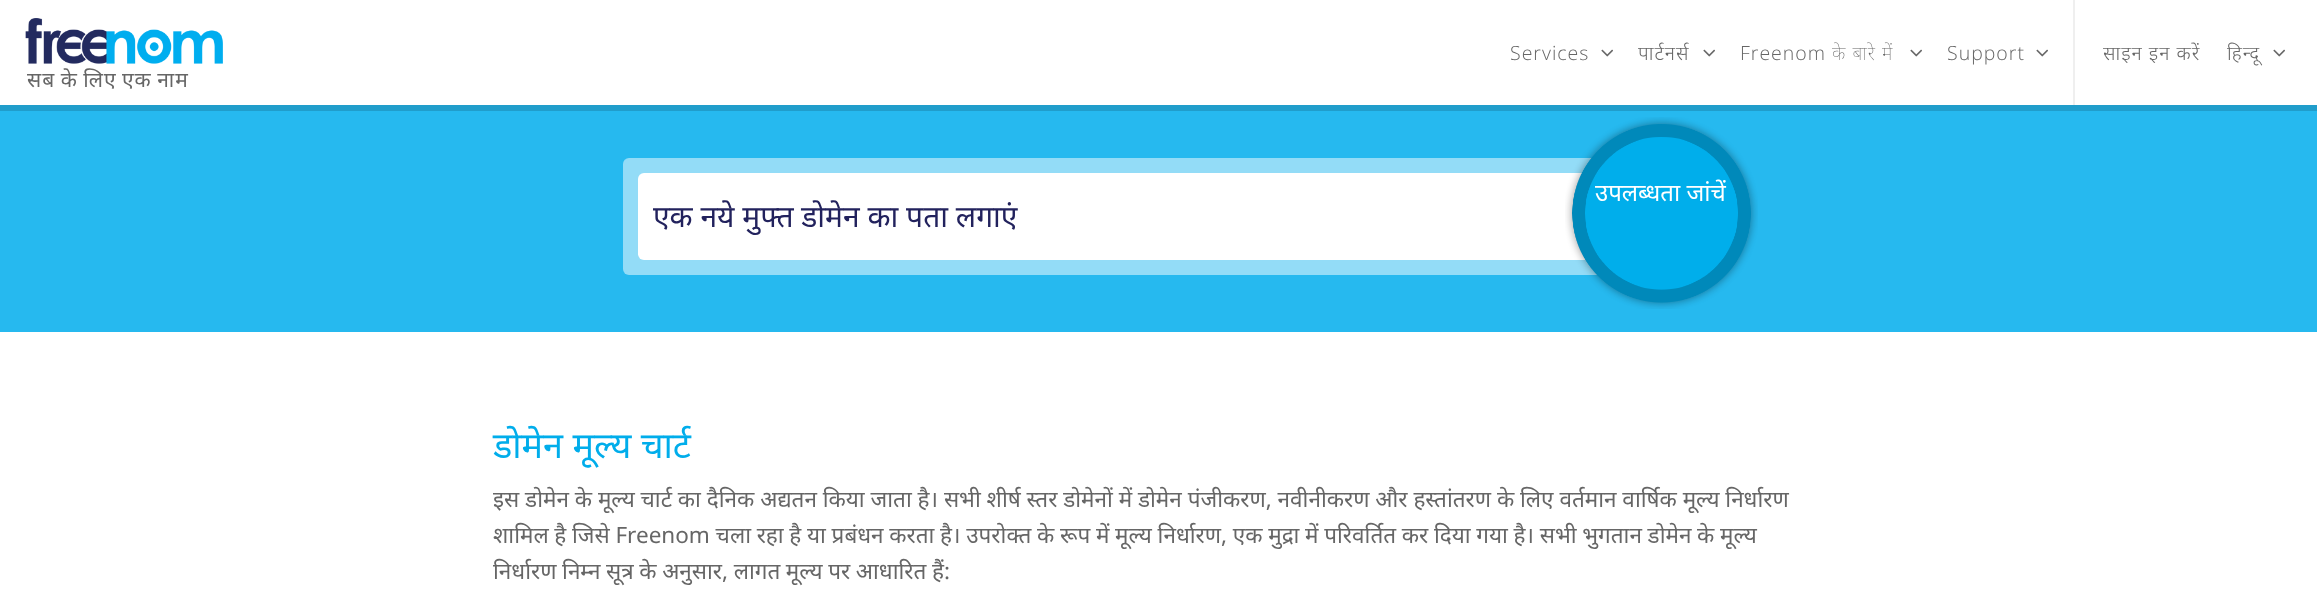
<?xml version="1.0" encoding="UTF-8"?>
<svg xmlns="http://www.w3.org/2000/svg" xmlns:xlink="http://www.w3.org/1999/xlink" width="2317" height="616">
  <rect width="100%" height="100%" fill="#ffffff" />
  <image x="25" y="18" width="198" height="46" xlink:href="image1.png" />
  <image x="1601" y="49" width="12" height="8" xlink:href="image2.png" />
  <image x="1703" y="49" width="12" height="8" xlink:href="image2.png" />
  <image x="1910" y="49" width="12" height="8" xlink:href="image2.png" />
  <image x="2036" y="49" width="12" height="8" xlink:href="image2.png" />
  <rect x="2073" width="2" height="105" fill="#efefef" />
  <image x="2273" y="49" width="12" height="8" xlink:href="image2.png" />
  <rect y="105" width="2317" height="6" fill="#209dcb" />
  <rect y="111" width="2317" height="221" fill="#26b9ef" />
  <rect x="623" y="158" width="1072" height="117" rx="6" fill="#93dcf7" />
  <rect x="638" y="173" width="1042" height="87" rx="6" fill="#ffffff" />
  <image x="1565" y="117" width="193" height="192" xlink:href="image3.png" />
  <text x="1510" y="60" style="font-family: Open Sans; font-size: 19.5px; font-weight: 300; letter-spacing: 1px; fill: #666666">Services</text>
  <text x="1638" y="60" style="font-family: Noto Sans; font-size: 19.5px; font-weight: 300; letter-spacing: 1px; fill: #666666">पार्टनर्स</text>
  <text x="1740" y="60" style="font-family: Open Sans; font-size: 19.5px; font-weight: 300; letter-spacing: 1px; fill: #666666">Freenom</text>
  <text x="1832" y="60" style="font-family: Noto Sans; font-size: 19.5px; font-weight: 100; letter-spacing: 1px; fill: #666666">के बारे में</text>
  <text x="1947" y="60" style="font-family: Open Sans; font-size: 19.5px; font-weight: 300; letter-spacing: 1px; fill: #666666">Support</text>
  <text x="2103" y="60" style="font-family: Noto Sans; font-size: 19.5px; font-weight: 300; letter-spacing: 1px; fill: #666666">साइन इन करें</text>
  <text x="2227" y="60" style="font-family: Noto Sans; font-size: 19.5px; font-weight: 300; letter-spacing: 1px; fill: #666666">हिन्दू</text>
  <text x="27" y="87" word-spacing="-1" style="font-family: Noto Sans; font-size: 21px; letter-spacing: 1px; fill: #666666">सब के लिए एक नाम</text>
  <text x="1595" y="201" style="font-family: Noto Sans; font-size: 24px; fill: #ffffff">उपलब्धता जांचें</text>
  <text x="653" y="227" style="font-family: Noto Sans; font-size: 30px; fill: #22225d">एक नये मुफ्त डोमेन का पता लगाएं</text>
  <text x="493" y="458" style="font-family: Noto Sans; font-size: 36px; fill: #00adeb">डोमेन मूल्य चार्ट</text>
  <text x="493" y="507" style="font-family: Noto Sans; font-size: 22.5px; fill: #666666">इस डोमेन के मूल्य चार्ट का दैनिक अद्यतन किया जाता है। सभी शीर्ष स्तर डोमेनों में डोमेन पंजीकरण, नवीनीकरण और हस्तांतरण के लिए वर्तमान वार्षिक मूल्य निर्धारण</text>
  <text x="493" y="543" word-spacing="-0.15" style="font-family: Noto Sans; font-size: 22.5px; fill: #666666">शामिल है जिसे Freenom चला रहा है या प्रबंधन करता है। उपरोक्त के रूप में मूल्य निर्धारण, एक मुद्रा में परिवर्तित कर दिया गया है। सभी भुगतान डोमेन के मूल्य</text>
  <text x="493" y="579" word-spacing="-0.25" style="font-family: Noto Sans; font-size: 22.5px; fill: #666666">निर्धारण निम्न सूत्र के अनुसार, लागत मूल्य पर आधारित हैं:</text>
</svg>
